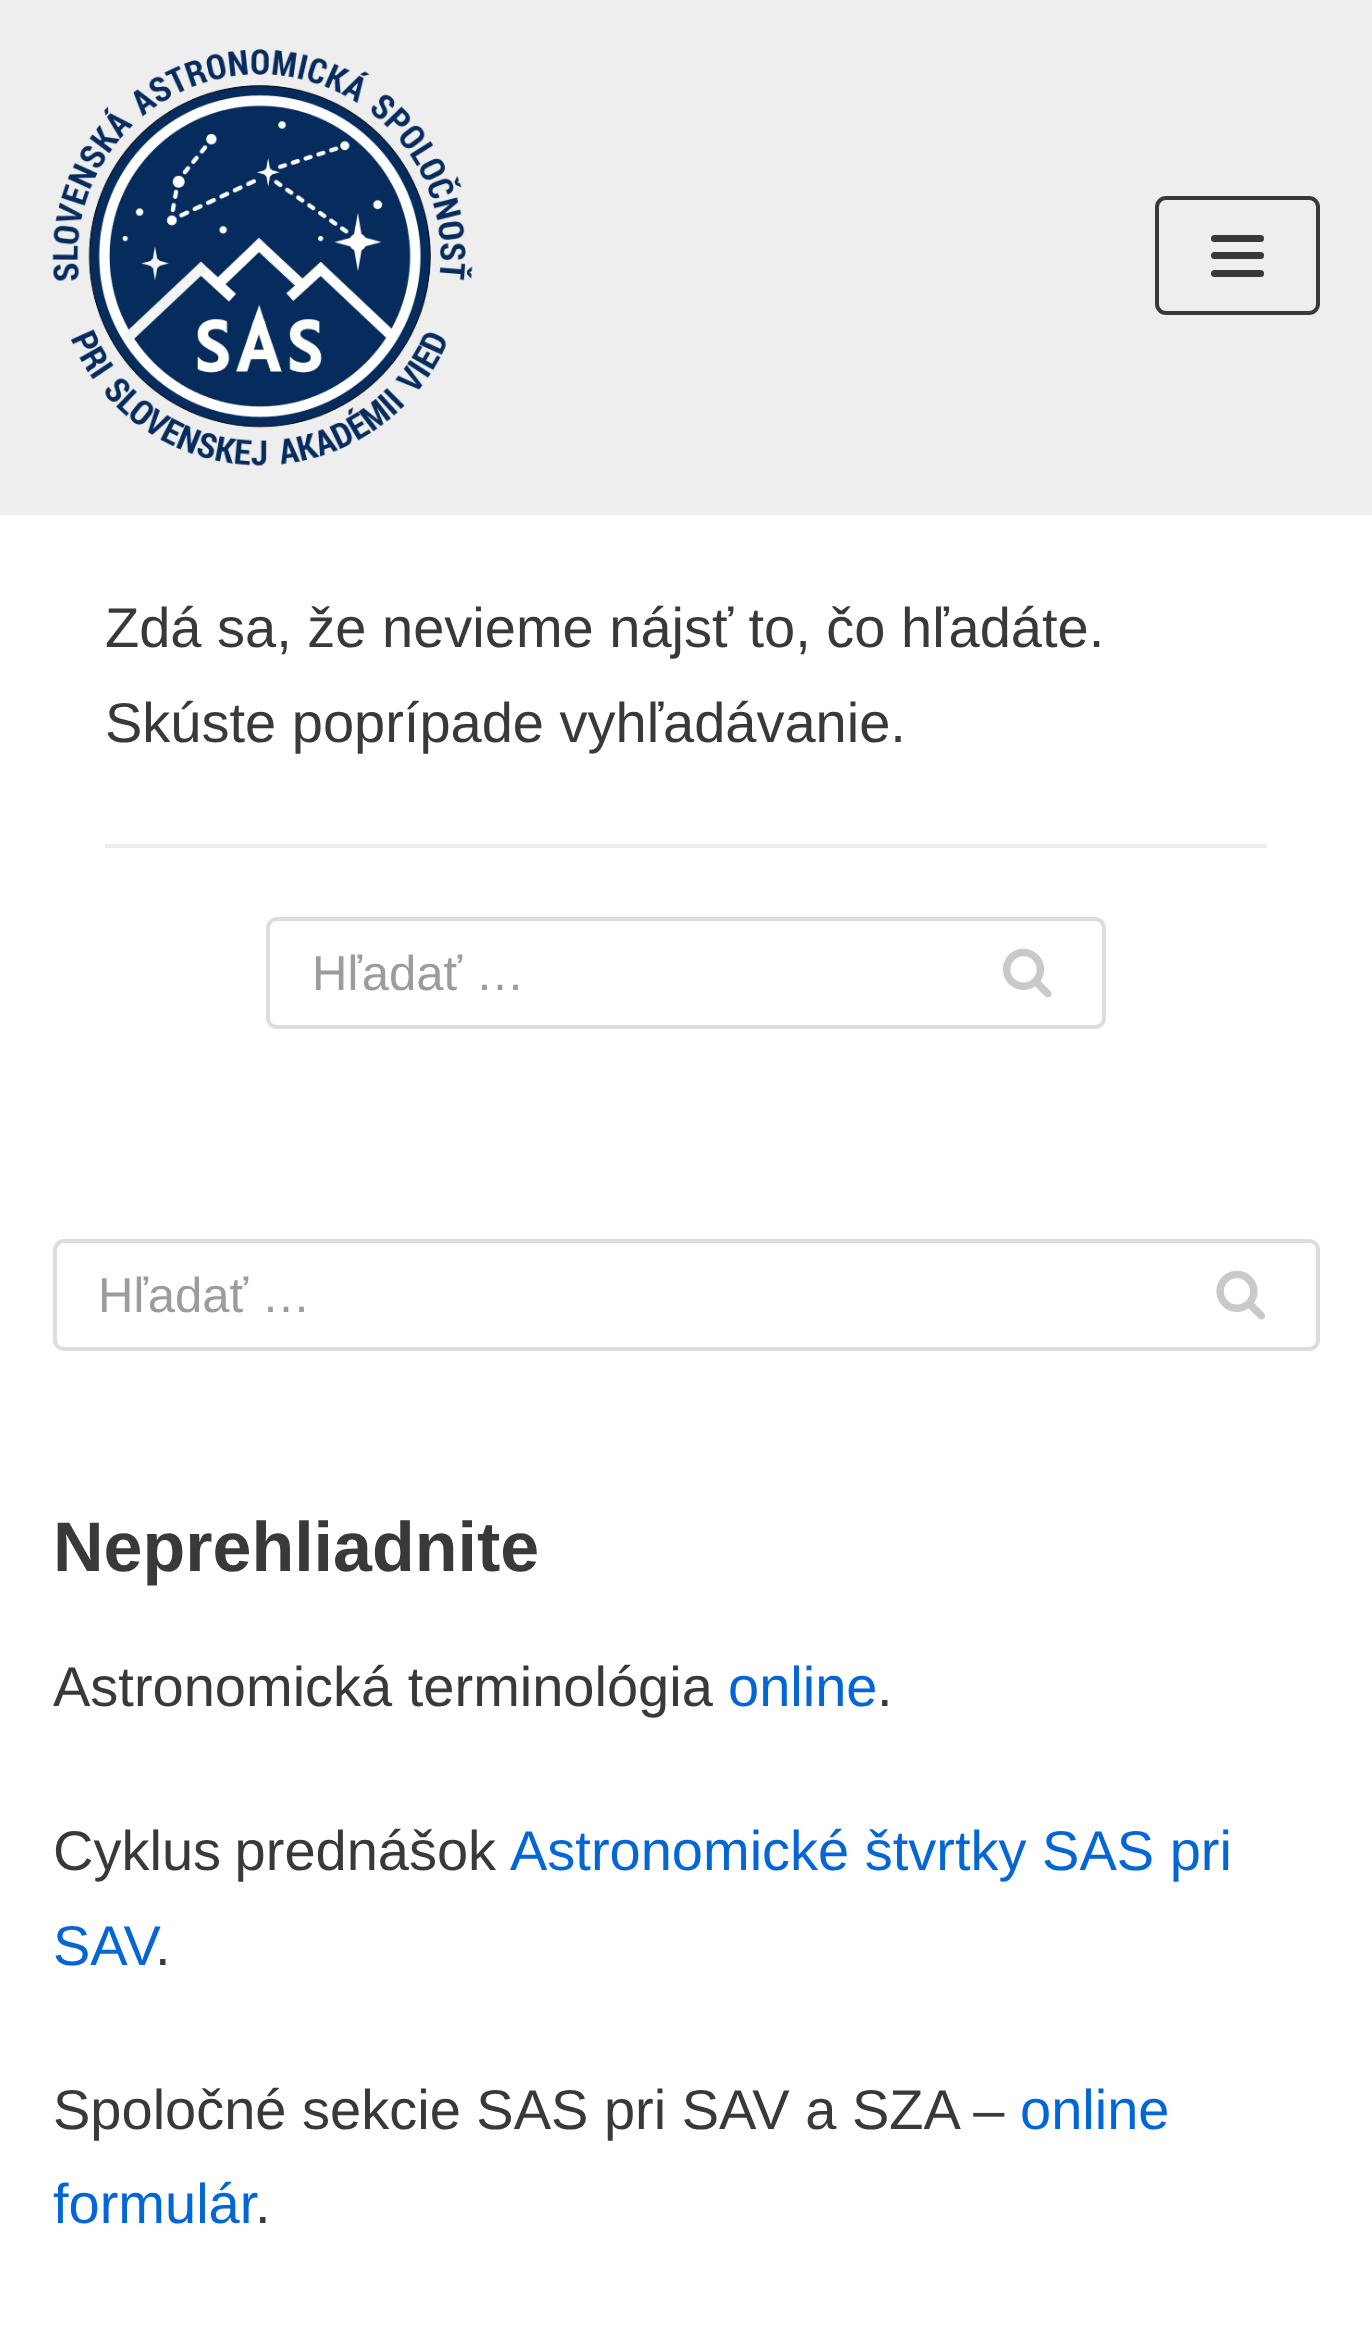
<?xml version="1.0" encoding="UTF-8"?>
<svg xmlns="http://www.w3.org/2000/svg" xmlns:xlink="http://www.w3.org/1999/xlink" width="1372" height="2331">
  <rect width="100%" height="100%" fill="#ffffff" />
  <rect width="1372" height="515" fill="#eeeeee" />
  <image x="52" y="49" width="421" height="417" xlink:href="image1.png" />
  <rect x="1157" y="198" width="161" height="115" rx="9" fill="none" stroke="#393939" stroke-width="4" />
  <rect x="1211" y="235" width="53" height="7" rx="3.5" fill="#393939" />
  <rect x="1211" y="252" width="53" height="7" rx="3.5" fill="#393939" />
  <rect x="1211" y="270" width="53" height="7" rx="3.5" fill="#393939" />
  <rect x="105" y="844" width="1162" height="4" fill="#ededed" />
  <rect x="268" y="919" width="836" height="108" rx="9" fill="none" stroke="#dddddd" stroke-width="4" />
  <image x="1002" y="948" width="50" height="50" xlink:href="image2.png" />
  <rect x="55" y="1241" width="1263" height="108" rx="9" fill="none" stroke="#dddddd" stroke-width="4" />
  <image x="1216" y="1270" width="49" height="50" xlink:href="image3.png" />
  <text x="105" y="647" style="font-family: Liberation Sans; font-size: 56px; fill: #393939">Zdá sa, že nevieme nájsť to, čo hľadáte.</text>
  <text x="105" y="742" style="font-family: Liberation Sans; font-size: 56px; fill: #393939">Skúste poprípade vyhľadávanie.</text>
  <text x="312" y="990" style="font-family: Liberation Sans; font-size: 49px; fill: #9c9c9c">Hľadať …</text>
  <text x="98" y="1312" style="font-family: Liberation Sans; font-size: 49px; fill: #9c9c9c">Hľadať …</text>
  <text x="53" y="1571" style="font-family: Liberation Sans; font-size: 70px; font-weight: bold; fill: #393939">Neprehliadnite</text>
  <text x="53" y="1706" style="font-family: Liberation Sans; font-size: 56px; fill: #393939">Astronomická terminológia</text>
  <text x="728" y="1706" style="font-family: Liberation Sans; font-size: 56px; fill: #0366d6">online</text>
  <text x="877" y="1706" style="font-family: Liberation Sans; font-size: 56px; fill: #393939">.</text>
  <text x="53" y="1870" word-spacing="-2" style="font-family: Liberation Sans; font-size: 56px; fill: #393939">Cyklus prednášok</text>
  <text x="510" y="1870" style="font-family: Liberation Sans; font-size: 56px; fill: #0366d6">Astronomické štvrtky SAS pri</text>
  <text x="53" y="1965" style="font-family: Liberation Sans; font-size: 56px; fill: #0366d6">SAV</text>
  <text x="155" y="1965" style="font-family: Liberation Sans; font-size: 56px; fill: #393939">.</text>
  <text x="53" y="2129" style="font-family: Liberation Sans; font-size: 56px; fill: #393939">Spoločné sekcie SAS pri SAV a SZA –</text>
  <text x="1020" y="2129" style="font-family: Liberation Sans; font-size: 56px; fill: #0366d6">online</text>
  <text x="53" y="2223" style="font-family: Liberation Sans; font-size: 56px; fill: #0366d6">formulár</text>
  <text x="255" y="2223" style="font-family: Liberation Sans; font-size: 56px; fill: #393939">.</text>
</svg>
